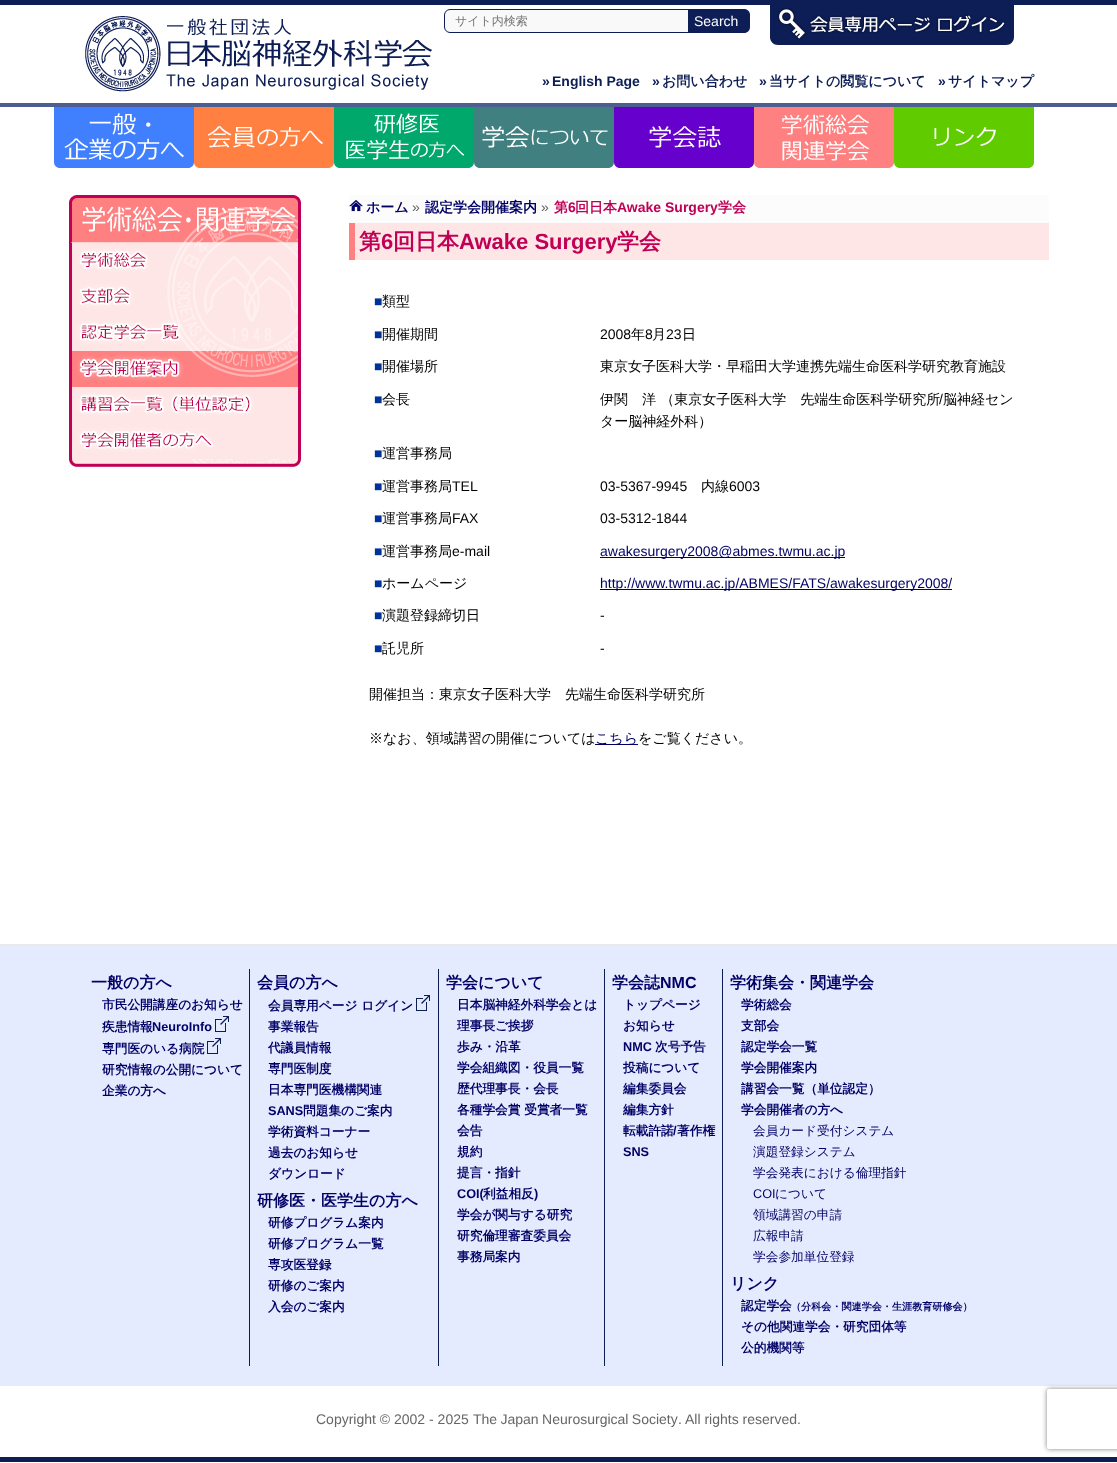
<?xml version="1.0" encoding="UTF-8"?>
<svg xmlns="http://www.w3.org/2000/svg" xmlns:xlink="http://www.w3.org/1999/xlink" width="1117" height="1463">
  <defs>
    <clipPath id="clip1"><path d="M 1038 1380 h 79 v 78 h -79 z m 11 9 h 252 c 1 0 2 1 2 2 v 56 c 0 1 -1 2 -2 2 h -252 c -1 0 -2 -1 -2 -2 v -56 c 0 -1 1 -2 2 -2 z" clip-rule="evenodd" /></clipPath>
  </defs>
  <rect width="100%" height="100%" fill="#ffffff" />
  <rect y="103" width="1117" height="4" fill="#4d5f90" />
  <rect width="1117" height="5" fill="#0d1d55" />
  <image x="85" y="16" width="347" height="76" xlink:href="image1.png" />
  <path d="M 450 9.5 h 239.5 v 23 h -239.5 c -3 0 -5.5 -2.5 -5.5 -5.5 v -12 c 0 -3 2.5 -5.5 5.5 -5.5 z" fill="#f9f9f9" stroke="#0d1d55" />
  <path d="M 688 9 h 56 c 3.5 0 6 2.5 6 6 v 12 c 0 3.5 -2.5 6 -6 6 h -56 z" fill="#0d1d55" />
  <path d="M 770 5 h 244 v 32 c 0 4.5 -3.5 8 -8 8 h -228 c -4.5 0 -8 -3.5 -8 -8 z" fill="#0d1d55" />
  <image x="777" y="8" width="229" height="32" xlink:href="image2.png" />
  <path d="M 54 107 h 140 v 55 c 0 3.5 -2.5 6 -6 6 h -128 c -3.5 0 -6 -2.5 -6 -6 z" fill="#4080ff" />
  <image x="64" y="113" width="120" height="47" xlink:href="image3.png" />
  <path d="M 194 107 h 140 v 55 c 0 3.5 -2.5 6 -6 6 h -128 c -3.5 0 -6 -2.5 -6 -6 z" fill="#ff8040" />
  <image x="207" y="126" width="116" height="22" xlink:href="image4.png" />
  <path d="M 334 107 h 140 v 55 c 0 3.5 -2.5 6 -6 6 h -128 c -3.5 0 -6 -2.5 -6 -6 z" fill="#00a86c" />
  <image x="346" y="113" width="119" height="47" xlink:href="image5.png" />
  <path d="M 474 107 h 140 v 55 c 0 3.5 -2.5 6 -6 6 h -128 c -3.5 0 -6 -2.5 -6 -6 z" fill="#408080" />
  <image x="482" y="126" width="126" height="22" xlink:href="image6.png" />
  <path d="M 614 107 h 140 v 55 c 0 3.5 -2.5 6 -6 6 h -128 c -3.5 0 -6 -2.5 -6 -6 z" fill="#6600cc" />
  <image x="649" y="126" width="72" height="22" xlink:href="image7.png" />
  <path d="M 754 107 h 140 v 55 c 0 3.5 -2.5 6 -6 6 h -128 c -3.5 0 -6 -2.5 -6 -6 z" fill="#ff8080" />
  <image x="781" y="114" width="88" height="47" xlink:href="image8.png" />
  <path d="M 894 107 h 140 v 55 c 0 3.5 -2.5 6 -6 6 h -128 c -3.5 0 -6 -2.5 -6 -6 z" fill="#60cc00" />
  <image x="934" y="127" width="62" height="19" xlink:href="image9.png" />
  <image x="69" y="195" width="232" height="48" xlink:href="image10.png" />
  <image x="69" y="459" width="232" height="8" xlink:href="image11.png" />
  <image x="69" y="243" width="232" height="36" xlink:href="image12.png" />
  <image x="69" y="279" width="232" height="36" xlink:href="image13.png" />
  <image x="69" y="315" width="232" height="36" xlink:href="image14.png" />
  <image x="69" y="351" width="232" height="36" xlink:href="image15.png" />
  <image x="69" y="387" width="232" height="36" xlink:href="image16.png" />
  <image x="69" y="423" width="232" height="36" xlink:href="image17.png" />
  <rect x="349" y="195" width="700" height="28" fill="#fcfcfc" />
  <image x="349" y="200" width="14" height="12" xlink:href="image18.png" />
  <rect x="355" y="223" width="694" height="37" fill="#ffe6e6" />
  <rect x="349" y="223" width="6" height="37" fill="#ff8080" />
  <rect x="600" y="557" width="245" height="1" fill="#000066" />
  <rect x="600" y="589" width="352" height="1" fill="#000066" />
  <rect x="595" y="744" width="43" height="1" fill="#000066" />
  <rect y="944" width="1117" height="1" fill="#e9e9e9" />
  <rect y="945" width="1117" height="441" fill="#e5ebff" />
  <image x="215" y="1016" width="14" height="16" xlink:href="image19.png" />
  <image x="207" y="1038" width="14" height="16" xlink:href="image19.png" />
  <rect x="249" y="969" width="1" height="397" fill="#0d1d55" />
  <image x="416" y="995" width="14" height="16" xlink:href="image19.png" />
  <rect x="438" y="969" width="1" height="397" fill="#0d1d55" />
  <rect x="604" y="969" width="1" height="397" fill="#0d1d55" />
  <rect x="722" y="969" width="1" height="397" fill="#0d1d55" />
  <rect y="1457" width="1117" height="5" fill="#0d1d55" />
  <g clip-path="url(#clip1)">
    <rect x="1047" y="1389" width="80" height="60" rx="2" fill="#808080" filter="blur(2.5px)" />
  </g>
  <text x="455" y="25" style="font-family: WenQuanYi Zen Hei; font-size: 12px; font-weight: 500; fill: #757575">サイト内検索</text>
  <text x="694" y="26" style="font-family: Liberation Sans; font-size: 14px; fill: #ffffff">Search</text>
  <text x="542" y="86" style="font-family: Liberation Sans; font-size: 14px; font-weight: bold; fill: #0d1d55">»</text>
  <text x="552" y="86" style="font-family: Liberation Sans; font-size: 14px; font-weight: bold; fill: #0d1d55">English Page</text>
  <text x="652" y="86" style="font-family: Liberation Sans; font-size: 14px; font-weight: bold; fill: #0d1d55">»</text>
  <text x="662" y="86" style="font-family: WenQuanYi Zen Hei; font-size: 14px; font-weight: bold; fill: #0d1d55">お問い合わせ</text>
  <text x="759" y="86" style="font-family: Liberation Sans; font-size: 14px; font-weight: bold; fill: #0d1d55">»</text>
  <text x="769" y="86" style="font-family: WenQuanYi Zen Hei; font-size: 14px; font-weight: bold; fill: #0d1d55">当サイトの閲覧について</text>
  <text x="938" y="86" style="font-family: Liberation Sans; font-size: 14px; font-weight: bold; fill: #0d1d55">»</text>
  <text x="948" y="86" style="font-family: WenQuanYi Zen Hei; font-size: 14px; font-weight: bold; fill: #0d1d55">サイトマップ</text>
  <text x="366" y="212" style="font-family: WenQuanYi Zen Hei; font-size: 14px; font-weight: bold; fill: #000066">ホーム</text>
  <text x="412" y="212" style="font-family: Liberation Sans; font-size: 14px; fill: #666666">»</text>
  <text x="425" y="212" style="font-family: WenQuanYi Zen Hei; font-size: 14px; font-weight: bold; fill: #000066">認定学会開催案内</text>
  <text x="541" y="212" style="font-family: Liberation Sans; font-size: 14px; fill: #666666">»</text>
  <text x="554" y="212" style="font-family: WenQuanYi Zen Hei; font-size: 14px; font-weight: bold; fill: #c00055">第</text>
  <text x="568" y="212" style="font-family: Liberation Sans; font-size: 14px; font-weight: bold; fill: #c00055">6</text>
  <text x="575" y="212" style="font-family: WenQuanYi Zen Hei; font-size: 14px; font-weight: bold; fill: #c00055">回日本</text>
  <text x="617" y="212" style="font-family: Liberation Sans; font-size: 14px; font-weight: bold; fill: #c00055">Awake Surgery</text>
  <text x="718" y="212" style="font-family: WenQuanYi Zen Hei; font-size: 14px; font-weight: bold; fill: #c00055">学会</text>
  <text x="359" y="249" style="font-family: WenQuanYi Zen Hei; font-size: 22px; font-weight: bold; fill: #c00055">第</text>
  <text x="381" y="249" style="font-family: Liberation Sans; font-size: 22px; font-weight: bold; fill: #c00055">6</text>
  <text x="393" y="249" style="font-family: WenQuanYi Zen Hei; font-size: 22px; font-weight: bold; fill: #c00055">回日本</text>
  <text x="459" y="249" style="font-family: Liberation Sans; font-size: 22px; font-weight: bold; fill: #c00055">Awake Surgery</text>
  <text x="617" y="249" style="font-family: WenQuanYi Zen Hei; font-size: 22px; font-weight: bold; fill: #c00055">学会</text>
  <text x="374" y="306" style="font-family: Liberation Sans; font-size: 14px; fill: #003399">■</text>
  <text x="382" y="306" style="font-family: WenQuanYi Zen Hei; font-size: 14px; font-weight: 500; fill: #000000">類型</text>
  <text x="374" y="339" style="font-family: Liberation Sans; font-size: 14px; fill: #003399">■</text>
  <text x="382" y="339" style="font-family: WenQuanYi Zen Hei; font-size: 14px; font-weight: 500; fill: #000000">開催期間</text>
  <text x="600" y="339" style="font-family: Liberation Sans; font-size: 14px; fill: #000000">2008</text>
  <text x="631" y="339" style="font-family: WenQuanYi Zen Hei; font-size: 14px; font-weight: 500; fill: #000000">年</text>
  <text x="645" y="339" style="font-family: Liberation Sans; font-size: 14px; fill: #000000">8</text>
  <text x="652" y="339" style="font-family: WenQuanYi Zen Hei; font-size: 14px; font-weight: 500; fill: #000000">月</text>
  <text x="666" y="339" style="font-family: Liberation Sans; font-size: 14px; fill: #000000">23</text>
  <text x="682" y="339" style="font-family: WenQuanYi Zen Hei; font-size: 14px; font-weight: 500; fill: #000000">日</text>
  <text x="374" y="371" style="font-family: Liberation Sans; font-size: 14px; fill: #003399">■</text>
  <text x="382" y="371" style="font-family: WenQuanYi Zen Hei; font-size: 14px; font-weight: 500; fill: #000000">開催場所</text>
  <text x="600" y="371" style="font-family: WenQuanYi Zen Hei; font-size: 14px; font-weight: 500; fill: #000000">東京女子医科大学・早稲田大学連携先端生命医科学研究教育施設</text>
  <text x="374" y="404" style="font-family: Liberation Sans; font-size: 14px; fill: #003399">■</text>
  <text x="382" y="404" style="font-family: WenQuanYi Zen Hei; font-size: 14px; font-weight: 500; fill: #000000">会長</text>
  <text x="600" y="404" style="font-family: WenQuanYi Zen Hei; font-size: 14px; font-weight: 500; fill: #000000">伊関　洋 （東京女子医科大学　先端生命医科学研究所</text>
  <text x="939" y="404" style="font-family: Liberation Sans; font-size: 14px; fill: #000000">/</text>
  <text x="943" y="404" style="font-family: WenQuanYi Zen Hei; font-size: 14px; font-weight: 500; fill: #000000">脳神経セン</text>
  <text x="600" y="426" style="font-family: WenQuanYi Zen Hei; font-size: 14px; font-weight: 500; fill: #000000">ター脳神経外科）</text>
  <text x="374" y="458" style="font-family: Liberation Sans; font-size: 14px; fill: #003399">■</text>
  <text x="382" y="458" style="font-family: WenQuanYi Zen Hei; font-size: 14px; font-weight: 500; fill: #000000">運営事務局</text>
  <text x="374" y="491" style="font-family: Liberation Sans; font-size: 14px; fill: #003399">■</text>
  <text x="382" y="491" style="font-family: WenQuanYi Zen Hei; font-size: 14px; font-weight: 500; fill: #000000">運営事務局</text>
  <text x="452" y="491" style="font-family: Liberation Sans; font-size: 14px; fill: #000000">TEL</text>
  <text x="600" y="491" style="font-family: Liberation Sans; font-size: 14px; fill: #000000">03-5367-9945</text>
  <text x="701" y="491" style="font-family: WenQuanYi Zen Hei; font-size: 14px; font-weight: 500; fill: #000000">内線</text>
  <text x="729" y="491" style="font-family: Liberation Sans; font-size: 14px; fill: #000000">6003</text>
  <text x="374" y="523" style="font-family: Liberation Sans; font-size: 14px; fill: #003399">■</text>
  <text x="382" y="523" style="font-family: WenQuanYi Zen Hei; font-size: 14px; font-weight: 500; fill: #000000">運営事務局</text>
  <text x="452" y="523" style="font-family: Liberation Sans; font-size: 14px; fill: #000000">FAX</text>
  <text x="600" y="523" style="font-family: Liberation Sans; font-size: 14px; fill: #000000">03-5312-1844</text>
  <text x="374" y="556" style="font-family: Liberation Sans; font-size: 14px; fill: #003399">■</text>
  <text x="382" y="556" style="font-family: WenQuanYi Zen Hei; font-size: 14px; font-weight: 500; fill: #000000">運営事務局</text>
  <text x="452" y="556" style="font-family: Liberation Sans; font-size: 14px; fill: #000000">e-mail</text>
  <text x="600" y="556" style="font-family: Liberation Sans; font-size: 14px; fill: #000066">awakesurgery2008@abmes.twmu.ac.jp</text>
  <text x="374" y="588" style="font-family: Liberation Sans; font-size: 14px; fill: #003399">■</text>
  <text x="382" y="588" style="font-family: WenQuanYi Zen Hei; font-size: 14px; font-weight: 500; fill: #000000">ホームページ</text>
  <text x="600" y="588" style="font-family: Liberation Sans; font-size: 14px; fill: #000066">http://www.twmu.ac.jp/ABMES/FATS/awakesurgery2008/</text>
  <text x="374" y="620" style="font-family: Liberation Sans; font-size: 14px; fill: #003399">■</text>
  <text x="382" y="620" style="font-family: WenQuanYi Zen Hei; font-size: 14px; font-weight: 500; fill: #000000">演題登録締切日</text>
  <text x="600" y="620" style="font-family: Liberation Sans; font-size: 14px; fill: #000000">-</text>
  <text x="374" y="653" style="font-family: Liberation Sans; font-size: 14px; fill: #003399">■</text>
  <text x="382" y="653" style="font-family: WenQuanYi Zen Hei; font-size: 14px; font-weight: 500; fill: #000000">託児所</text>
  <text x="600" y="653" style="font-family: Liberation Sans; font-size: 14px; fill: #000000">-</text>
  <text x="369" y="699" style="font-family: WenQuanYi Zen Hei; font-size: 14px; font-weight: 500; fill: #000000">開催担当：東京女子医科大学　先端生命医科学研究所</text>
  <text x="369" y="743" style="font-family: WenQuanYi Zen Hei; font-size: 14px; font-weight: 500; fill: #000000">※なお、領域講習の開催については</text>
  <text x="595" y="743" style="font-family: WenQuanYi Zen Hei; font-size: 14px; font-weight: 500; fill: #000066">こちら</text>
  <text x="638" y="743" style="font-family: WenQuanYi Zen Hei; font-size: 14px; font-weight: 500; fill: #000000">をご覧ください。</text>
  <text x="91" y="988" style="font-family: WenQuanYi Zen Hei; font-size: 16px; font-weight: bold; fill: #000066">一般の方へ</text>
  <text x="102" y="1009" style="font-family: WenQuanYi Zen Hei; font-size: 12.7px; font-weight: bold; fill: #000066">市民公開講座のお知らせ</text>
  <text x="102" y="1031" style="font-family: WenQuanYi Zen Hei; font-size: 12.7px; font-weight: bold; fill: #000066">疾患情報</text>
  <text x="152" y="1031" style="font-family: Liberation Sans; font-size: 12.7px; font-weight: bold; fill: #000066">NeuroInfo</text>
  <text x="102" y="1053" style="font-family: WenQuanYi Zen Hei; font-size: 12.7px; font-weight: bold; fill: #000066">専門医のいる病院</text>
  <text x="102" y="1074" style="font-family: WenQuanYi Zen Hei; font-size: 12.7px; font-weight: bold; fill: #000066">研究情報の公開について</text>
  <text x="102" y="1095" style="font-family: WenQuanYi Zen Hei; font-size: 12.7px; font-weight: bold; fill: #000066">企業の方へ</text>
  <text x="257" y="988" style="font-family: WenQuanYi Zen Hei; font-size: 16px; font-weight: bold; fill: #000066">会員の方へ</text>
  <text x="268" y="1010" style="font-family: WenQuanYi Zen Hei; font-size: 12.7px; font-weight: bold; fill: #000066">会員専用ページ ログイン</text>
  <text x="268" y="1031" style="font-family: WenQuanYi Zen Hei; font-size: 12.7px; font-weight: bold; fill: #000066">事業報告</text>
  <text x="268" y="1052" style="font-family: WenQuanYi Zen Hei; font-size: 12.7px; font-weight: bold; fill: #000066">代議員情報</text>
  <text x="268" y="1073" style="font-family: WenQuanYi Zen Hei; font-size: 12.7px; font-weight: bold; fill: #000066">専門医制度</text>
  <text x="268" y="1094" style="font-family: WenQuanYi Zen Hei; font-size: 12.7px; font-weight: bold; fill: #000066">日本専門医機構関連</text>
  <text x="268" y="1115" style="font-family: Liberation Sans; font-size: 12.7px; font-weight: bold; fill: #000066">SANS</text>
  <text x="303" y="1115" style="font-family: WenQuanYi Zen Hei; font-size: 12.7px; font-weight: bold; fill: #000066">問題集のご案内</text>
  <text x="268" y="1136" style="font-family: WenQuanYi Zen Hei; font-size: 12.7px; font-weight: bold; fill: #000066">学術資料コーナー</text>
  <text x="268" y="1157" style="font-family: WenQuanYi Zen Hei; font-size: 12.7px; font-weight: bold; fill: #000066">過去のお知らせ</text>
  <text x="268" y="1178" style="font-family: WenQuanYi Zen Hei; font-size: 12.7px; font-weight: bold; fill: #000066">ダウンロード</text>
  <text x="257" y="1206" style="font-family: WenQuanYi Zen Hei; font-size: 16px; font-weight: bold; fill: #000066">研修医・医学生の方へ</text>
  <text x="268" y="1227" style="font-family: WenQuanYi Zen Hei; font-size: 12.7px; font-weight: bold; fill: #000066">研修プログラム案内</text>
  <text x="268" y="1248" style="font-family: WenQuanYi Zen Hei; font-size: 12.7px; font-weight: bold; fill: #000066">研修プログラム一覧</text>
  <text x="268" y="1269" style="font-family: WenQuanYi Zen Hei; font-size: 12.7px; font-weight: bold; fill: #000066">専攻医登録</text>
  <text x="268" y="1290" style="font-family: WenQuanYi Zen Hei; font-size: 12.7px; font-weight: bold; fill: #000066">研修のご案内</text>
  <text x="268" y="1311" style="font-family: WenQuanYi Zen Hei; font-size: 12.7px; font-weight: bold; fill: #000066">入会のご案内</text>
  <text x="446" y="988" style="font-family: WenQuanYi Zen Hei; font-size: 16px; font-weight: bold; fill: #000066">学会について</text>
  <text x="457" y="1009" style="font-family: WenQuanYi Zen Hei; font-size: 12.7px; font-weight: bold; fill: #000066">日本脳神経外科学会とは</text>
  <text x="457" y="1030" style="font-family: WenQuanYi Zen Hei; font-size: 12.7px; font-weight: bold; fill: #000066">理事長ご挨拶</text>
  <text x="457" y="1051" style="font-family: WenQuanYi Zen Hei; font-size: 12.7px; font-weight: bold; fill: #000066">歩み・沿革</text>
  <text x="457" y="1072" style="font-family: WenQuanYi Zen Hei; font-size: 12.7px; font-weight: bold; fill: #000066">学会組織図・役員一覧</text>
  <text x="457" y="1093" style="font-family: WenQuanYi Zen Hei; font-size: 12.7px; font-weight: bold; fill: #000066">歴代理事長・会長</text>
  <text x="457" y="1114" style="font-family: WenQuanYi Zen Hei; font-size: 12.7px; font-weight: bold; fill: #000066">各種学会賞 受賞者一覧</text>
  <text x="457" y="1135" style="font-family: WenQuanYi Zen Hei; font-size: 12.7px; font-weight: bold; fill: #000066">会告</text>
  <text x="457" y="1156" style="font-family: WenQuanYi Zen Hei; font-size: 12.7px; font-weight: bold; fill: #000066">規約</text>
  <text x="457" y="1177" style="font-family: WenQuanYi Zen Hei; font-size: 12.7px; font-weight: bold; fill: #000066">提言・指針</text>
  <text x="457" y="1198" style="font-family: Liberation Sans; font-size: 12.7px; font-weight: bold; fill: #000066">COI(</text>
  <text x="483" y="1198" style="font-family: WenQuanYi Zen Hei; font-size: 12.7px; font-weight: bold; fill: #000066">利益相反</text>
  <text x="534" y="1198" style="font-family: Liberation Sans; font-size: 12.7px; font-weight: bold; fill: #000066">)</text>
  <text x="457" y="1219" style="font-family: WenQuanYi Zen Hei; font-size: 12.7px; font-weight: bold; fill: #000066">学会が関与する研究</text>
  <text x="457" y="1240" style="font-family: WenQuanYi Zen Hei; font-size: 12.7px; font-weight: bold; fill: #000066">研究倫理審査委員会</text>
  <text x="457" y="1261" style="font-family: WenQuanYi Zen Hei; font-size: 12.7px; font-weight: bold; fill: #000066">事務局案内</text>
  <text x="612" y="988" style="font-family: WenQuanYi Zen Hei; font-size: 16px; font-weight: bold; fill: #000066">学会誌</text>
  <text x="660" y="988" style="font-family: Liberation Sans; font-size: 16px; font-weight: bold; fill: #000066">NMC</text>
  <text x="623" y="1009" style="font-family: WenQuanYi Zen Hei; font-size: 12.7px; font-weight: bold; fill: #000066">トップページ</text>
  <text x="623" y="1030" style="font-family: WenQuanYi Zen Hei; font-size: 12.7px; font-weight: bold; fill: #000066">お知らせ</text>
  <text x="623" y="1051" style="font-family: Liberation Sans; font-size: 12.7px; font-weight: bold; fill: #000066">NMC</text>
  <text x="655" y="1051" style="font-family: WenQuanYi Zen Hei; font-size: 12.7px; font-weight: bold; fill: #000066">次号予告</text>
  <text x="623" y="1072" style="font-family: WenQuanYi Zen Hei; font-size: 12.7px; font-weight: bold; fill: #000066">投稿について</text>
  <text x="623" y="1093" style="font-family: WenQuanYi Zen Hei; font-size: 12.7px; font-weight: bold; fill: #000066">編集委員会</text>
  <text x="623" y="1114" style="font-family: WenQuanYi Zen Hei; font-size: 12.7px; font-weight: bold; fill: #000066">編集方針</text>
  <text x="623" y="1135" style="font-family: WenQuanYi Zen Hei; font-size: 12.7px; font-weight: bold; fill: #000066">転載許諾</text>
  <text x="673" y="1135" style="font-family: Liberation Sans; font-size: 12.7px; font-weight: bold; fill: #000066">/</text>
  <text x="677" y="1135" style="font-family: WenQuanYi Zen Hei; font-size: 12.7px; font-weight: bold; fill: #000066">著作権</text>
  <text x="623" y="1156" style="font-family: Liberation Sans; font-size: 12.7px; font-weight: bold; fill: #000066">SNS</text>
  <text x="730" y="988" style="font-family: WenQuanYi Zen Hei; font-size: 16px; font-weight: bold; fill: #000066">学術集会・関連学会</text>
  <text x="741" y="1009" style="font-family: WenQuanYi Zen Hei; font-size: 12.7px; font-weight: bold; fill: #000066">学術総会</text>
  <text x="741" y="1030" style="font-family: WenQuanYi Zen Hei; font-size: 12.7px; font-weight: bold; fill: #000066">支部会</text>
  <text x="741" y="1051" style="font-family: WenQuanYi Zen Hei; font-size: 12.7px; font-weight: bold; fill: #000066">認定学会一覧</text>
  <text x="741" y="1072" style="font-family: WenQuanYi Zen Hei; font-size: 12.7px; font-weight: bold; fill: #000066">学会開催案内</text>
  <text x="741" y="1093" style="font-family: WenQuanYi Zen Hei; font-size: 12.7px; font-weight: bold; fill: #000066">講習会一覧（単位認定）</text>
  <text x="741" y="1114" style="font-family: WenQuanYi Zen Hei; font-size: 12.7px; font-weight: bold; fill: #000066">学会開催者の方へ</text>
  <text x="753" y="1135" style="font-family: WenQuanYi Zen Hei; font-size: 12.7px; font-weight: 500; fill: #000066">会員カード受付システム</text>
  <text x="753" y="1156" style="font-family: WenQuanYi Zen Hei; font-size: 12.7px; font-weight: 500; fill: #000066">演題登録システム</text>
  <text x="753" y="1177" style="font-family: WenQuanYi Zen Hei; font-size: 12.7px; font-weight: 500; fill: #000066">学会発表における倫理指針</text>
  <text x="753" y="1198" style="font-family: Liberation Sans; font-size: 12.7px; fill: #000066">COI</text>
  <text x="775" y="1198" style="font-family: WenQuanYi Zen Hei; font-size: 12.7px; font-weight: 500; fill: #000066">について</text>
  <text x="753" y="1219" style="font-family: WenQuanYi Zen Hei; font-size: 12.7px; font-weight: 500; fill: #000066">領域講習の申請</text>
  <text x="753" y="1240" style="font-family: WenQuanYi Zen Hei; font-size: 12.7px; font-weight: 500; fill: #000066">広報申請</text>
  <text x="753" y="1261" style="font-family: WenQuanYi Zen Hei; font-size: 12.7px; font-weight: 500; fill: #000066">学会参加単位登録</text>
  <text x="730" y="1289" style="font-family: WenQuanYi Zen Hei; font-size: 16px; font-weight: bold; fill: #000066">リンク</text>
  <text x="741" y="1310" style="font-family: WenQuanYi Zen Hei; font-size: 12.7px; font-weight: bold; fill: #000066">認定学会</text>
  <text x="791" y="1310" style="font-family: WenQuanYi Zen Hei; font-size: 10.1px; font-weight: bold; fill: #000066">（分科会・関連学会・生涯教育研修会）</text>
  <text x="741" y="1331" style="font-family: WenQuanYi Zen Hei; font-size: 12.7px; font-weight: bold; fill: #000066">その他関連学会・研究団体等</text>
  <text x="741" y="1352" style="font-family: WenQuanYi Zen Hei; font-size: 12.7px; font-weight: bold; fill: #000066">公的機関等</text>
  <text x="316" y="1424" style="font-family: Liberation Sans; font-size: 14px; fill: #666666">Copyright © 2002 - 2025</text>
  <text x="473" y="1424" word-spacing="-0.5" style="font-family: Liberation Sans; font-size: 14px; fill: #666666">The Japan Neurosurgical Society</text>
  <text x="678" y="1424" style="font-family: Liberation Sans; font-size: 14px; fill: #666666">. All rights reserved.</text>
</svg>
